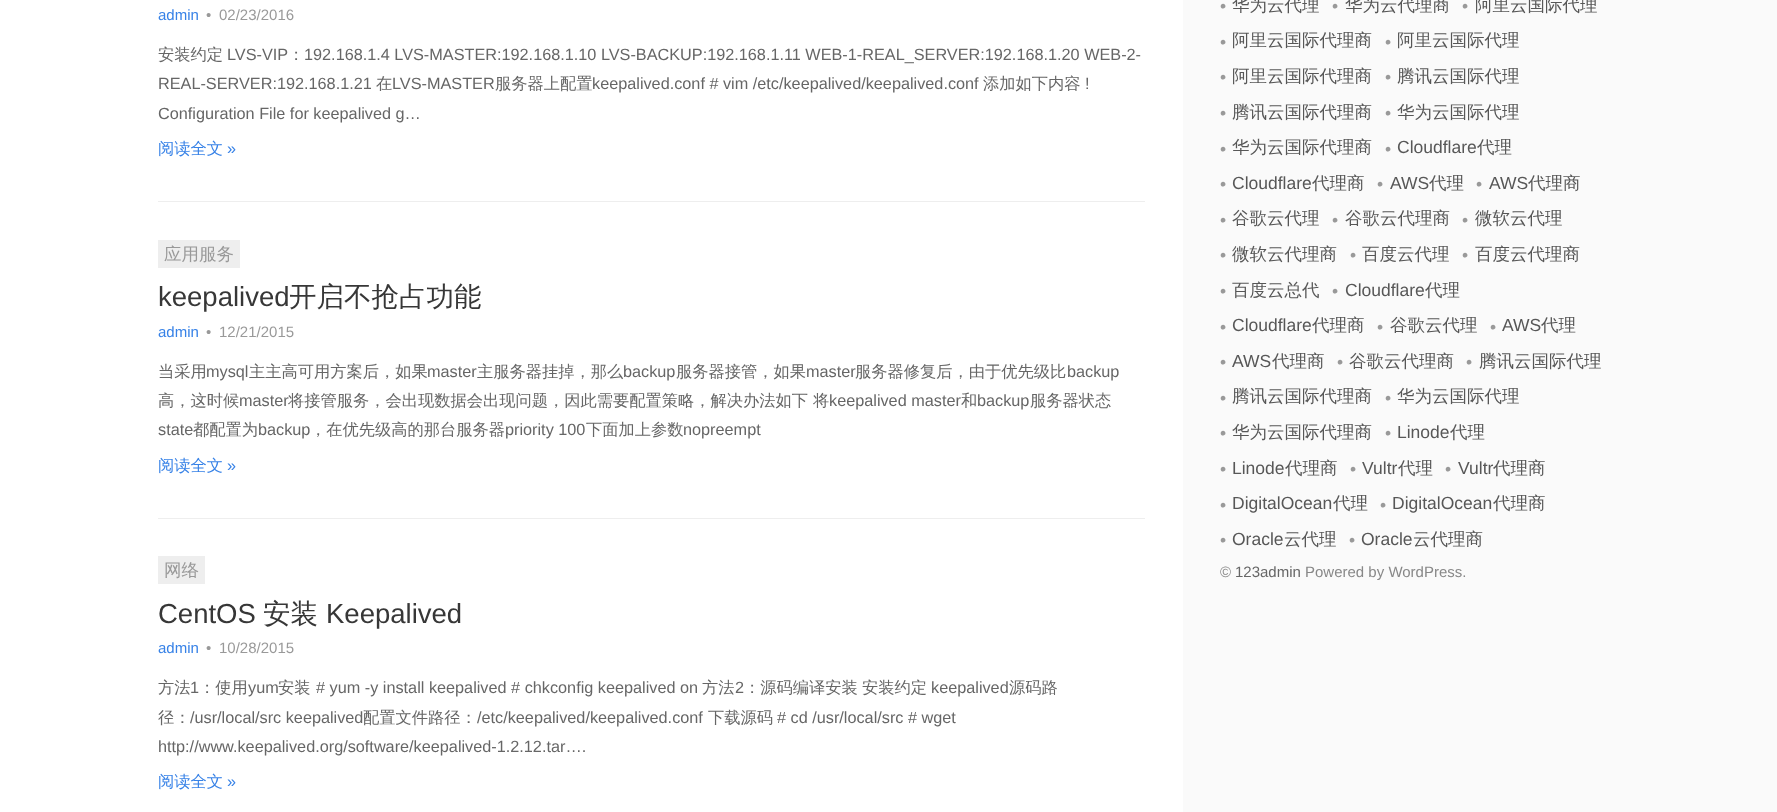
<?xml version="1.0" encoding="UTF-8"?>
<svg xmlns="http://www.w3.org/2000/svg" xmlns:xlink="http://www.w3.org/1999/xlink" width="1777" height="812">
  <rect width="100%" height="100%" fill="#ffffff" />
  <rect x="1183" width="594" height="812" fill="#fafafa" />
  <rect x="158" y="201" width="987" height="1" fill="#eeeeee" />
  <rect x="158" y="518" width="987" height="1" fill="#eeeeee" />
  <rect x="158" y="240" width="82" height="28" fill="#eeeeee" />
  <rect x="158" y="556" width="47" height="28" fill="#eeeeee" />
  <text x="158" y="20" style="font-family: Liberation Sans; font-size: 15px; fill: #3782e7">admin</text>
  <text x="206" y="20" style="font-family: Liberation Sans; font-size: 15px; fill: #999999">•</text>
  <text x="219" y="20" style="font-family: Liberation Sans; font-size: 15px; fill: #999999">02/23/2016</text>
  <text x="158" y="60" style="font-family: WenQuanYi Zen Hei; font-size: 16.25px; font-weight: 500; fill: #666666">安装约定</text>
  <text x="227" y="60" style="font-family: Liberation Sans; font-size: 16.25px; fill: #666666">LVS-VIP</text>
  <text x="288" y="60" style="font-family: WenQuanYi Zen Hei; font-size: 16.25px; font-weight: 500; fill: #666666">：</text>
  <text x="304" y="60" style="font-family: Liberation Sans; font-size: 16.25px; fill: #666666">192.168.1.4 LVS-MASTER:192.168.1.10 LVS-BACKUP:192.168.1.11 WEB-1-REAL_SERVER:192.168.1.20 WEB-2-</text>
  <text x="158" y="89" style="font-family: Liberation Sans; font-size: 16.25px; fill: #666666">REAL-SERVER:192.168.1.21</text>
  <text x="376" y="89" style="font-family: WenQuanYi Zen Hei; font-size: 16.25px; font-weight: 500; fill: #666666">在</text>
  <text x="392" y="89" style="font-family: Liberation Sans; font-size: 16.25px; fill: #666666">LVS-MASTER</text>
  <text x="495" y="89" style="font-family: WenQuanYi Zen Hei; font-size: 16.25px; font-weight: 500; fill: #666666">服务器上配置</text>
  <text x="592" y="89" style="font-family: Liberation Sans; font-size: 16.25px; fill: #666666">keepalived.conf # vim /etc/keepalived/keepalived.conf</text>
  <text x="983" y="89" style="font-family: WenQuanYi Zen Hei; font-size: 16.25px; font-weight: 500; fill: #666666">添加如下内容</text>
  <text x="1085" y="89" style="font-family: Liberation Sans; font-size: 16.25px; fill: #666666">!</text>
  <text x="158" y="119" style="font-family: Liberation Sans; font-size: 16.25px; fill: #666666">Configuration File for keepalived g…</text>
  <text x="158" y="154" style="font-family: WenQuanYi Zen Hei; font-size: 16.25px; font-weight: 500; fill: #3782e7">阅读全文</text>
  <text x="227" y="154" style="font-family: Liberation Sans; font-size: 16.25px; fill: #3782e7">»</text>
  <text x="164" y="260" style="font-family: WenQuanYi Zen Hei; font-size: 17.5px; font-weight: 500; fill: #999999">应用服务</text>
  <text x="158" y="306" style="font-family: Liberation Sans; font-size: 27.5px; fill: #373737">keepalived</text>
  <text x="289" y="306" style="font-family: WenQuanYi Zen Hei; font-size: 27.5px; font-weight: 500; fill: #373737">开启不抢占功能</text>
  <text x="158" y="337" style="font-family: Liberation Sans; font-size: 15px; fill: #3782e7">admin</text>
  <text x="206" y="337" style="font-family: Liberation Sans; font-size: 15px; fill: #999999">•</text>
  <text x="219" y="337" style="font-family: Liberation Sans; font-size: 15px; fill: #999999">12/21/2015</text>
  <text x="158" y="377" style="font-family: WenQuanYi Zen Hei; font-size: 16.25px; font-weight: 500; fill: #666666">当采用</text>
  <text x="206" y="377" style="font-family: Liberation Sans; font-size: 16.25px; fill: #666666">mysql</text>
  <text x="249" y="377" style="font-family: WenQuanYi Zen Hei; font-size: 16.25px; font-weight: 500; fill: #666666">主主高可用方案后，如果</text>
  <text x="427" y="377" style="font-family: Liberation Sans; font-size: 16.25px; fill: #666666">master</text>
  <text x="477" y="377" style="font-family: WenQuanYi Zen Hei; font-size: 16.25px; font-weight: 500; fill: #666666">主服务器挂掉，那么</text>
  <text x="623" y="377" style="font-family: Liberation Sans; font-size: 16.25px; fill: #666666">backup</text>
  <text x="676" y="377" style="font-family: WenQuanYi Zen Hei; font-size: 16.25px; font-weight: 500; fill: #666666">服务器接管，如果</text>
  <text x="806" y="377" style="font-family: Liberation Sans; font-size: 16.25px; fill: #666666">master</text>
  <text x="855" y="377" style="font-family: WenQuanYi Zen Hei; font-size: 16.25px; font-weight: 500; fill: #666666">服务器修复后，由于优先级比</text>
  <text x="1067" y="377" style="font-family: Liberation Sans; font-size: 16.25px; fill: #666666">backup</text>
  <text x="158" y="406" style="font-family: WenQuanYi Zen Hei; font-size: 16.25px; font-weight: 500; fill: #666666">高，这时候</text>
  <text x="239" y="406" style="font-family: Liberation Sans; font-size: 16.25px; fill: #666666">master</text>
  <text x="288" y="406" style="font-family: WenQuanYi Zen Hei; font-size: 16.25px; font-weight: 500; fill: #666666">将接管服务，会出现数据会出现问题，因此需要配置策略，解决办法如下</text>
  <text x="813" y="406" style="font-family: WenQuanYi Zen Hei; font-size: 16.25px; font-weight: 500; fill: #666666">将</text>
  <text x="829" y="406" style="font-family: Liberation Sans; font-size: 16.25px; fill: #666666">keepalived master</text>
  <text x="961" y="406" style="font-family: WenQuanYi Zen Hei; font-size: 16.25px; font-weight: 500; fill: #666666">和</text>
  <text x="977" y="406" style="font-family: Liberation Sans; font-size: 16.25px; fill: #666666">backup</text>
  <text x="1030" y="406" style="font-family: WenQuanYi Zen Hei; font-size: 16.25px; font-weight: 500; fill: #666666">服务器状态</text>
  <text x="158" y="435" style="font-family: Liberation Sans; font-size: 16.25px; fill: #666666">state</text>
  <text x="193" y="435" style="font-family: WenQuanYi Zen Hei; font-size: 16.25px; font-weight: 500; fill: #666666">都配置为</text>
  <text x="258" y="435" style="font-family: Liberation Sans; font-size: 16.25px; fill: #666666">backup</text>
  <text x="310" y="435" style="font-family: WenQuanYi Zen Hei; font-size: 16.25px; font-weight: 500; fill: #666666">，在优先级高的那台服务器</text>
  <text x="505" y="435" style="font-family: Liberation Sans; font-size: 16.25px; fill: #666666">priority 100</text>
  <text x="586" y="435" style="font-family: WenQuanYi Zen Hei; font-size: 16.25px; font-weight: 500; fill: #666666">下面加上参数</text>
  <text x="683" y="435" style="font-family: Liberation Sans; font-size: 16.25px; fill: #666666">nopreempt</text>
  <text x="158" y="471" style="font-family: WenQuanYi Zen Hei; font-size: 16.25px; font-weight: 500; fill: #3782e7">阅读全文</text>
  <text x="227" y="471" style="font-family: Liberation Sans; font-size: 16.25px; fill: #3782e7">»</text>
  <text x="164" y="576" style="font-family: WenQuanYi Zen Hei; font-size: 17.5px; font-weight: 500; fill: #999999">网络</text>
  <text x="158" y="623" style="font-family: Liberation Sans; font-size: 27.5px; fill: #373737">CentOS</text>
  <text x="263" y="623" style="font-family: WenQuanYi Zen Hei; font-size: 27.5px; font-weight: 500; fill: #373737">安装</text>
  <text x="326" y="623" style="font-family: Liberation Sans; font-size: 27.5px; fill: #373737">Keepalived</text>
  <text x="158" y="653" style="font-family: Liberation Sans; font-size: 15px; fill: #3782e7">admin</text>
  <text x="206" y="653" style="font-family: Liberation Sans; font-size: 15px; fill: #999999">•</text>
  <text x="219" y="653" style="font-family: Liberation Sans; font-size: 15px; fill: #999999">10/28/2015</text>
  <text x="158" y="693" style="font-family: WenQuanYi Zen Hei; font-size: 16.25px; font-weight: 500; fill: #666666">方法</text>
  <text x="190" y="693" style="font-family: Liberation Sans; font-size: 16.25px; fill: #666666">1</text>
  <text x="199" y="693" style="font-family: WenQuanYi Zen Hei; font-size: 16.25px; font-weight: 500; fill: #666666">：使用</text>
  <text x="248" y="693" style="font-family: Liberation Sans; font-size: 16.25px; fill: #666666">yum</text>
  <text x="278" y="693" style="font-family: WenQuanYi Zen Hei; font-size: 16.25px; font-weight: 500; fill: #666666">安装</text>
  <text x="316" y="693" style="font-family: Liberation Sans; font-size: 16.25px; fill: #666666"># yum -y install keepalived # chkconfig keepalived on</text>
  <text x="702" y="693" style="font-family: WenQuanYi Zen Hei; font-size: 16.25px; font-weight: 500; fill: #666666">方法</text>
  <text x="735" y="693" style="font-family: Liberation Sans; font-size: 16.25px; fill: #666666">2</text>
  <text x="744" y="693" style="font-family: WenQuanYi Zen Hei; font-size: 16.25px; font-weight: 500; fill: #666666">：源码编译安装</text>
  <text x="862" y="693" style="font-family: WenQuanYi Zen Hei; font-size: 16.25px; font-weight: 500; fill: #666666">安装约定</text>
  <text x="931" y="693" style="font-family: Liberation Sans; font-size: 16.25px; fill: #666666">keepalived</text>
  <text x="1009" y="693" style="font-family: WenQuanYi Zen Hei; font-size: 16.25px; font-weight: 500; fill: #666666">源码路</text>
  <text x="158" y="723" style="font-family: WenQuanYi Zen Hei; font-size: 16.25px; font-weight: 500; fill: #666666">径：</text>
  <text x="190" y="723" style="font-family: Liberation Sans; font-size: 16.25px; fill: #666666">/usr/local/src keepalived</text>
  <text x="363" y="723" style="font-family: WenQuanYi Zen Hei; font-size: 16.25px; font-weight: 500; fill: #666666">配置文件路径：</text>
  <text x="477" y="723" style="font-family: Liberation Sans; font-size: 16.25px; fill: #666666">/etc/keepalived/keepalived.conf</text>
  <text x="708" y="723" style="font-family: WenQuanYi Zen Hei; font-size: 16.25px; font-weight: 500; fill: #666666">下载源码</text>
  <text x="777" y="723" style="font-family: Liberation Sans; font-size: 16.25px; fill: #666666"># cd /usr/local/src # wget</text>
  <text x="158" y="752" style="font-family: Liberation Sans; font-size: 16.25px; fill: #666666">http://www.keepalived.org/software/keepalived-1.2.12.tar….</text>
  <text x="158" y="787" style="font-family: WenQuanYi Zen Hei; font-size: 16.25px; font-weight: 500; fill: #3782e7">阅读全文</text>
  <text x="227" y="787" style="font-family: Liberation Sans; font-size: 16.25px; fill: #3782e7">»</text>
  <text x="1220" y="12" style="font-family: Liberation Sans; font-size: 17.5px; fill: #999999">•</text>
  <text x="1232" y="11" style="font-family: WenQuanYi Zen Hei; font-size: 17.5px; font-weight: 500; fill: #575757">华为云代理</text>
  <text x="1332" y="12" style="font-family: Liberation Sans; font-size: 17.5px; fill: #999999">•</text>
  <text x="1345" y="11" style="font-family: WenQuanYi Zen Hei; font-size: 17.5px; font-weight: 500; fill: #575757">华为云代理商</text>
  <text x="1462" y="12" style="font-family: Liberation Sans; font-size: 17.5px; fill: #999999">•</text>
  <text x="1475" y="11" style="font-family: WenQuanYi Zen Hei; font-size: 17.5px; font-weight: 500; fill: #575757">阿里云国际代理</text>
  <text x="1220" y="48" style="font-family: Liberation Sans; font-size: 17.5px; fill: #999999">•</text>
  <text x="1232" y="46" style="font-family: WenQuanYi Zen Hei; font-size: 17.5px; font-weight: 500; fill: #575757">阿里云国际代理商</text>
  <text x="1385" y="48" style="font-family: Liberation Sans; font-size: 17.5px; fill: #999999">•</text>
  <text x="1397" y="46" style="font-family: WenQuanYi Zen Hei; font-size: 17.5px; font-weight: 500; fill: #575757">阿里云国际代理</text>
  <text x="1220" y="83" style="font-family: Liberation Sans; font-size: 17.5px; fill: #999999">•</text>
  <text x="1232" y="82" style="font-family: WenQuanYi Zen Hei; font-size: 17.5px; font-weight: 500; fill: #575757">阿里云国际代理商</text>
  <text x="1385" y="83" style="font-family: Liberation Sans; font-size: 17.5px; fill: #999999">•</text>
  <text x="1397" y="82" style="font-family: WenQuanYi Zen Hei; font-size: 17.5px; font-weight: 500; fill: #575757">腾讯云国际代理</text>
  <text x="1220" y="119" style="font-family: Liberation Sans; font-size: 17.5px; fill: #999999">•</text>
  <text x="1232" y="118" style="font-family: WenQuanYi Zen Hei; font-size: 17.5px; font-weight: 500; fill: #575757">腾讯云国际代理商</text>
  <text x="1385" y="119" style="font-family: Liberation Sans; font-size: 17.5px; fill: #999999">•</text>
  <text x="1397" y="118" style="font-family: WenQuanYi Zen Hei; font-size: 17.5px; font-weight: 500; fill: #575757">华为云国际代理</text>
  <text x="1220" y="155" style="font-family: Liberation Sans; font-size: 17.5px; fill: #999999">•</text>
  <text x="1232" y="153" style="font-family: WenQuanYi Zen Hei; font-size: 17.5px; font-weight: 500; fill: #575757">华为云国际代理商</text>
  <text x="1385" y="155" style="font-family: Liberation Sans; font-size: 17.5px; fill: #999999">•</text>
  <text x="1397" y="153" style="font-family: Liberation Sans; font-size: 17.5px; fill: #575757">Cloudflare</text>
  <text x="1477" y="153" style="font-family: WenQuanYi Zen Hei; font-size: 17.5px; font-weight: 500; fill: #575757">代理</text>
  <text x="1220" y="190" style="font-family: Liberation Sans; font-size: 17.5px; fill: #999999">•</text>
  <text x="1232" y="189" style="font-family: Liberation Sans; font-size: 17.5px; fill: #575757">Cloudflare</text>
  <text x="1312" y="189" style="font-family: WenQuanYi Zen Hei; font-size: 17.5px; font-weight: 500; fill: #575757">代理商</text>
  <text x="1377" y="190" style="font-family: Liberation Sans; font-size: 17.5px; fill: #999999">•</text>
  <text x="1390" y="189" style="font-family: Liberation Sans; font-size: 17.5px; fill: #575757">AWS</text>
  <text x="1429" y="189" style="font-family: WenQuanYi Zen Hei; font-size: 17.5px; font-weight: 500; fill: #575757">代理</text>
  <text x="1476" y="190" style="font-family: Liberation Sans; font-size: 17.5px; fill: #999999">•</text>
  <text x="1489" y="189" style="font-family: Liberation Sans; font-size: 17.5px; fill: #575757">AWS</text>
  <text x="1528" y="189" style="font-family: WenQuanYi Zen Hei; font-size: 17.5px; font-weight: 500; fill: #575757">代理商</text>
  <text x="1220" y="226" style="font-family: Liberation Sans; font-size: 17.5px; fill: #999999">•</text>
  <text x="1232" y="224" style="font-family: WenQuanYi Zen Hei; font-size: 17.5px; font-weight: 500; fill: #575757">谷歌云代理</text>
  <text x="1332" y="226" style="font-family: Liberation Sans; font-size: 17.5px; fill: #999999">•</text>
  <text x="1345" y="224" style="font-family: WenQuanYi Zen Hei; font-size: 17.5px; font-weight: 500; fill: #575757">谷歌云代理商</text>
  <text x="1462" y="226" style="font-family: Liberation Sans; font-size: 17.5px; fill: #999999">•</text>
  <text x="1475" y="224" style="font-family: WenQuanYi Zen Hei; font-size: 17.5px; font-weight: 500; fill: #575757">微软云代理</text>
  <text x="1220" y="261" style="font-family: Liberation Sans; font-size: 17.5px; fill: #999999">•</text>
  <text x="1232" y="260" style="font-family: WenQuanYi Zen Hei; font-size: 17.5px; font-weight: 500; fill: #575757">微软云代理商</text>
  <text x="1350" y="261" style="font-family: Liberation Sans; font-size: 17.5px; fill: #999999">•</text>
  <text x="1362" y="260" style="font-family: WenQuanYi Zen Hei; font-size: 17.5px; font-weight: 500; fill: #575757">百度云代理</text>
  <text x="1462" y="261" style="font-family: Liberation Sans; font-size: 17.5px; fill: #999999">•</text>
  <text x="1475" y="260" style="font-family: WenQuanYi Zen Hei; font-size: 17.5px; font-weight: 500; fill: #575757">百度云代理商</text>
  <text x="1220" y="297" style="font-family: Liberation Sans; font-size: 17.5px; fill: #999999">•</text>
  <text x="1232" y="296" style="font-family: WenQuanYi Zen Hei; font-size: 17.5px; font-weight: 500; fill: #575757">百度云总代</text>
  <text x="1332" y="297" style="font-family: Liberation Sans; font-size: 17.5px; fill: #999999">•</text>
  <text x="1345" y="296" style="font-family: Liberation Sans; font-size: 17.5px; fill: #575757">Cloudflare</text>
  <text x="1425" y="296" style="font-family: WenQuanYi Zen Hei; font-size: 17.5px; font-weight: 500; fill: #575757">代理</text>
  <text x="1220" y="333" style="font-family: Liberation Sans; font-size: 17.5px; fill: #999999">•</text>
  <text x="1232" y="331" style="font-family: Liberation Sans; font-size: 17.5px; fill: #575757">Cloudflare</text>
  <text x="1312" y="331" style="font-family: WenQuanYi Zen Hei; font-size: 17.5px; font-weight: 500; fill: #575757">代理商</text>
  <text x="1377" y="333" style="font-family: Liberation Sans; font-size: 17.5px; fill: #999999">•</text>
  <text x="1390" y="331" style="font-family: WenQuanYi Zen Hei; font-size: 17.5px; font-weight: 500; fill: #575757">谷歌云代理</text>
  <text x="1490" y="333" style="font-family: Liberation Sans; font-size: 17.5px; fill: #999999">•</text>
  <text x="1502" y="331" style="font-family: Liberation Sans; font-size: 17.5px; fill: #575757">AWS</text>
  <text x="1541" y="331" style="font-family: WenQuanYi Zen Hei; font-size: 17.5px; font-weight: 500; fill: #575757">代理</text>
  <text x="1220" y="368" style="font-family: Liberation Sans; font-size: 17.5px; fill: #999999">•</text>
  <text x="1232" y="367" style="font-family: Liberation Sans; font-size: 17.5px; fill: #575757">AWS</text>
  <text x="1272" y="367" style="font-family: WenQuanYi Zen Hei; font-size: 17.5px; font-weight: 500; fill: #575757">代理商</text>
  <text x="1337" y="368" style="font-family: Liberation Sans; font-size: 17.5px; fill: #999999">•</text>
  <text x="1349" y="367" style="font-family: WenQuanYi Zen Hei; font-size: 17.5px; font-weight: 500; fill: #575757">谷歌云代理商</text>
  <text x="1466" y="368" style="font-family: Liberation Sans; font-size: 17.5px; fill: #999999">•</text>
  <text x="1479" y="367" style="font-family: WenQuanYi Zen Hei; font-size: 17.5px; font-weight: 500; fill: #575757">腾讯云国际代理</text>
  <text x="1220" y="404" style="font-family: Liberation Sans; font-size: 17.5px; fill: #999999">•</text>
  <text x="1232" y="402" style="font-family: WenQuanYi Zen Hei; font-size: 17.5px; font-weight: 500; fill: #575757">腾讯云国际代理商</text>
  <text x="1385" y="404" style="font-family: Liberation Sans; font-size: 17.5px; fill: #999999">•</text>
  <text x="1397" y="402" style="font-family: WenQuanYi Zen Hei; font-size: 17.5px; font-weight: 500; fill: #575757">华为云国际代理</text>
  <text x="1220" y="439" style="font-family: Liberation Sans; font-size: 17.5px; fill: #999999">•</text>
  <text x="1232" y="438" style="font-family: WenQuanYi Zen Hei; font-size: 17.5px; font-weight: 500; fill: #575757">华为云国际代理商</text>
  <text x="1385" y="439" style="font-family: Liberation Sans; font-size: 17.5px; fill: #999999">•</text>
  <text x="1397" y="438" style="font-family: Liberation Sans; font-size: 17.5px; fill: #575757">Linode</text>
  <text x="1450" y="438" style="font-family: WenQuanYi Zen Hei; font-size: 17.5px; font-weight: 500; fill: #575757">代理</text>
  <text x="1220" y="475" style="font-family: Liberation Sans; font-size: 17.5px; fill: #999999">•</text>
  <text x="1232" y="474" style="font-family: Liberation Sans; font-size: 17.5px; fill: #575757">Linode</text>
  <text x="1285" y="474" style="font-family: WenQuanYi Zen Hei; font-size: 17.5px; font-weight: 500; fill: #575757">代理商</text>
  <text x="1350" y="475" style="font-family: Liberation Sans; font-size: 17.5px; fill: #999999">•</text>
  <text x="1362" y="474" style="font-family: Liberation Sans; font-size: 17.5px; fill: #575757">Vultr</text>
  <text x="1398" y="474" style="font-family: WenQuanYi Zen Hei; font-size: 17.5px; font-weight: 500; fill: #575757">代理</text>
  <text x="1445" y="475" style="font-family: Liberation Sans; font-size: 17.5px; fill: #999999">•</text>
  <text x="1458" y="474" style="font-family: Liberation Sans; font-size: 17.5px; fill: #575757">Vultr</text>
  <text x="1493" y="474" style="font-family: WenQuanYi Zen Hei; font-size: 17.5px; font-weight: 500; fill: #575757">代理商</text>
  <text x="1220" y="511" style="font-family: Liberation Sans; font-size: 17.5px; fill: #999999">•</text>
  <text x="1232" y="509" style="font-family: Liberation Sans; font-size: 17.5px; fill: #575757">DigitalOcean</text>
  <text x="1333" y="509" style="font-family: WenQuanYi Zen Hei; font-size: 17.5px; font-weight: 500; fill: #575757">代理</text>
  <text x="1380" y="511" style="font-family: Liberation Sans; font-size: 17.5px; fill: #999999">•</text>
  <text x="1392" y="509" style="font-family: Liberation Sans; font-size: 17.5px; fill: #575757">DigitalOcean</text>
  <text x="1493" y="509" style="font-family: WenQuanYi Zen Hei; font-size: 17.5px; font-weight: 500; fill: #575757">代理商</text>
  <text x="1220" y="546" style="font-family: Liberation Sans; font-size: 17.5px; fill: #999999">•</text>
  <text x="1232" y="545" style="font-family: Liberation Sans; font-size: 17.5px; fill: #575757">Oracle</text>
  <text x="1284" y="545" style="font-family: WenQuanYi Zen Hei; font-size: 17.5px; font-weight: 500; fill: #575757">云代理</text>
  <text x="1349" y="546" style="font-family: Liberation Sans; font-size: 17.5px; fill: #999999">•</text>
  <text x="1361" y="545" style="font-family: Liberation Sans; font-size: 17.5px; fill: #575757">Oracle</text>
  <text x="1413" y="545" style="font-family: WenQuanYi Zen Hei; font-size: 17.5px; font-weight: 500; fill: #575757">云代理商</text>
  <text x="1220" y="577" style="font-family: Liberation Sans; font-size: 15px; fill: #888888">©</text>
  <text x="1235" y="577" style="font-family: Liberation Sans; font-size: 15px; fill: #666666">123admin</text>
  <text x="1305" y="577" style="font-family: Liberation Sans; font-size: 15px; fill: #888888">Powered by WordPress.</text>
</svg>
